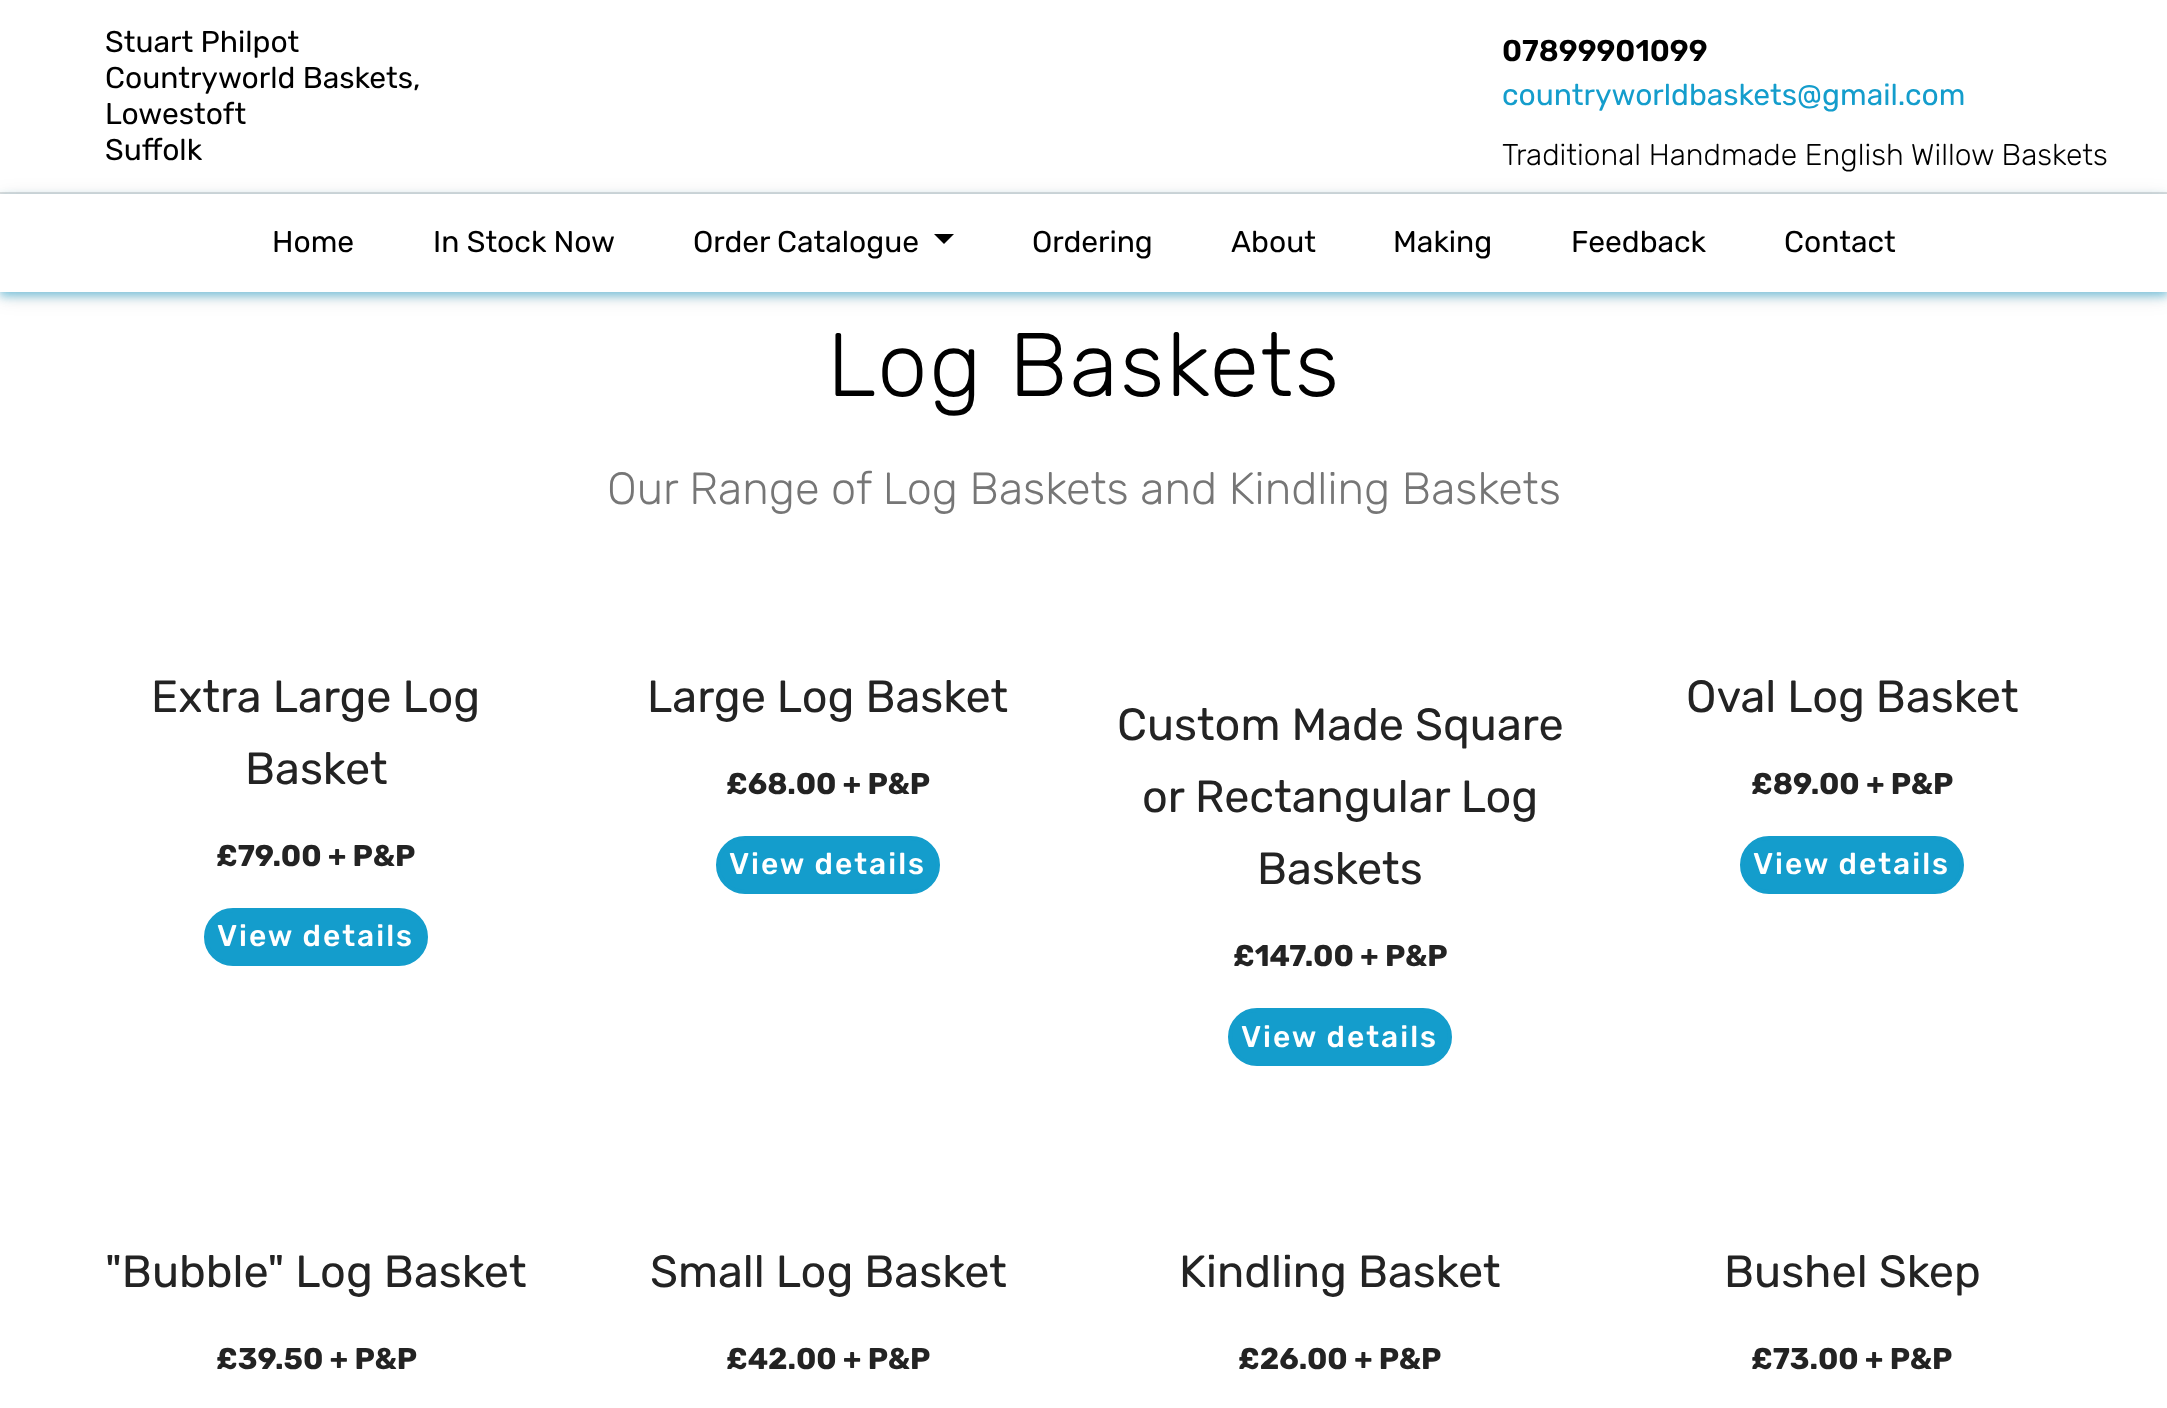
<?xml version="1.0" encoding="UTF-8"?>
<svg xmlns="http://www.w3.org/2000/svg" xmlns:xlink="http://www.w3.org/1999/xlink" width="2167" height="1408">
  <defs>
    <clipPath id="clip1"><path d="M 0 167 h 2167 v 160 h -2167 z m 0 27 h 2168 v 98 h -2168 z" clip-rule="evenodd" /></clipPath>
    <clipPath id="clip2"><path d="M 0 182 h 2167 v 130 h -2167 z m 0 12 h 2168 v 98 h -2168 z" clip-rule="evenodd" /></clipPath>
  </defs>
  <rect width="100%" height="100%" fill="#ffffff" />
  <rect y="192" width="2167" height="2" fill="#e0e0e0" />
  <g clip-path="url(#clip1)">
    <rect y="198" width="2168" height="98" fill="#000000" fill-opacity="0.12" filter="blur(10px)" />
  </g>
  <g clip-path="url(#clip2)">
    <rect y="198" width="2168" height="98" fill="#149dcc" fill-opacity="0.5" filter="blur(5px)" />
  </g>
  <path d="M 934 234 h 20 l -10 10 z" fill="#000000" />
  <rect x="206" y="910" width="220" height="54" rx="27" fill="#149dcc" stroke="#149dcc" stroke-width="4" />
  <rect x="718" y="838" width="220" height="54" rx="27" fill="#149dcc" stroke="#149dcc" stroke-width="4" />
  <rect x="1230" y="1010" width="220" height="54" rx="27" fill="#149dcc" stroke="#149dcc" stroke-width="4" />
  <rect x="1742" y="838" width="220" height="54" rx="27" fill="#149dcc" stroke="#149dcc" stroke-width="4" />
  <text x="105" y="52" style="font-family: Rubik; font-size: 30px; fill: #000000">Stuart Philpot</text>
  <text x="105" y="88" style="font-family: Rubik; font-size: 30px; fill: #000000">Countryworld Baskets,</text>
  <text x="105" y="124" style="font-family: Rubik; font-size: 30px; fill: #000000">Lowestoft</text>
  <text x="105" y="160" style="font-family: Rubik; font-size: 30px; fill: #000000">Suffolk</text>
  <text x="1502" y="61" style="font-family: Rubik; font-size: 30px; font-weight: 600; fill: #000000">07899901099</text>
  <text x="1502" y="105" style="font-family: Rubik; font-size: 30px; fill: #149dcc">countryworldbaskets@gmail.com</text>
  <text x="1502" y="165" style="font-family: Rubik; font-size: 30px; font-weight: 300; fill: #000000">Traditional Handmade English Willow Baskets</text>
  <text x="272" y="252" style="font-family: Rubik; font-size: 30px; fill: #000000">Home</text>
  <text x="433" y="252" style="font-family: Rubik; font-size: 30px; fill: #000000">In Stock Now</text>
  <text x="693" y="252" style="font-family: Rubik; font-size: 30px; fill: #000000">Order Catalogue</text>
  <text x="1032" y="252" style="font-family: Rubik; font-size: 30px; fill: #000000">Ordering</text>
  <text x="1231" y="252" style="font-family: Rubik; font-size: 30px; fill: #000000">About</text>
  <text x="1393" y="252" style="font-family: Rubik; font-size: 30px; fill: #000000">Making</text>
  <text x="1571" y="252" style="font-family: Rubik; font-size: 30px; fill: #000000">Feedback</text>
  <text x="1784" y="252" style="font-family: Rubik; font-size: 30px; fill: #000000">Contact</text>
  <text x="827" y="396" style="font-family: Rubik; font-size: 90px; font-weight: 300; letter-spacing: 2px; fill: #000000">Log Baskets</text>
  <text x="607" y="504" style="font-family: Rubik; font-size: 45px; font-weight: 300; fill: #767676">Our Range of Log Baskets and Kindling Baskets</text>
  <text x="151" y="712" style="font-family: Rubik; font-size: 45px; fill: #232323">Extra Large Log</text>
  <text x="245" y="784" style="font-family: Rubik; font-size: 45px; fill: #232323">Basket</text>
  <text x="216" y="866" style="font-family: Rubik; font-size: 30px; font-weight: bold; fill: #232323">£79.00 + P&amp;P</text>
  <text x="217" y="946" style="font-family: Rubik; font-size: 30px; font-weight: 500; letter-spacing: 2px; fill: #ffffff">View details</text>
  <text x="647" y="712" style="font-family: Rubik; font-size: 45px; fill: #232323">Large Log Basket</text>
  <text x="726" y="794" style="font-family: Rubik; font-size: 30px; font-weight: bold; fill: #232323">£68.00 + P&amp;P</text>
  <text x="729" y="874" style="font-family: Rubik; font-size: 30px; font-weight: 500; letter-spacing: 2px; fill: #ffffff">View details</text>
  <text x="1117" y="740" style="font-family: Rubik; font-size: 45px; fill: #232323">Custom Made Square</text>
  <text x="1142" y="812" style="font-family: Rubik; font-size: 45px; fill: #232323">or Rectangular Log</text>
  <text x="1257" y="884" style="font-family: Rubik; font-size: 45px; fill: #232323">Baskets</text>
  <text x="1233" y="966" style="font-family: Rubik; font-size: 30px; font-weight: bold; fill: #232323">£147.00 + P&amp;P</text>
  <text x="1241" y="1047" style="font-family: Rubik; font-size: 30px; font-weight: 500; letter-spacing: 2px; fill: #ffffff">View details</text>
  <text x="1686" y="712" style="font-family: Rubik; font-size: 45px; fill: #232323">Oval Log Basket</text>
  <text x="1751" y="794" style="font-family: Rubik; font-size: 30px; font-weight: bold; fill: #232323">£89.00 + P&amp;P</text>
  <text x="1753" y="874" style="font-family: Rubik; font-size: 30px; font-weight: 500; letter-spacing: 2px; fill: #ffffff">View details</text>
  <text x="105" y="1287" style="font-family: Rubik; font-size: 45px; fill: #232323">"Bubble" Log Basket</text>
  <text x="216" y="1369" style="font-family: Rubik; font-size: 30px; font-weight: bold; fill: #232323">£39.50 + P&amp;P</text>
  <text x="650" y="1287" style="font-family: Rubik; font-size: 45px; fill: #232323">Small Log Basket</text>
  <text x="726" y="1369" style="font-family: Rubik; font-size: 30px; font-weight: bold; fill: #232323">£42.00 + P&amp;P</text>
  <text x="1179" y="1287" style="font-family: Rubik; font-size: 45px; fill: #232323">Kindling Basket</text>
  <text x="1238" y="1369" style="font-family: Rubik; font-size: 30px; font-weight: bold; fill: #232323">£26.00 + P&amp;P</text>
  <text x="1724" y="1287" style="font-family: Rubik; font-size: 45px; fill: #232323">Bushel Skep</text>
  <text x="1751" y="1369" style="font-family: Rubik; font-size: 30px; font-weight: bold; fill: #232323">£73.00 + P&amp;P</text>
</svg>
